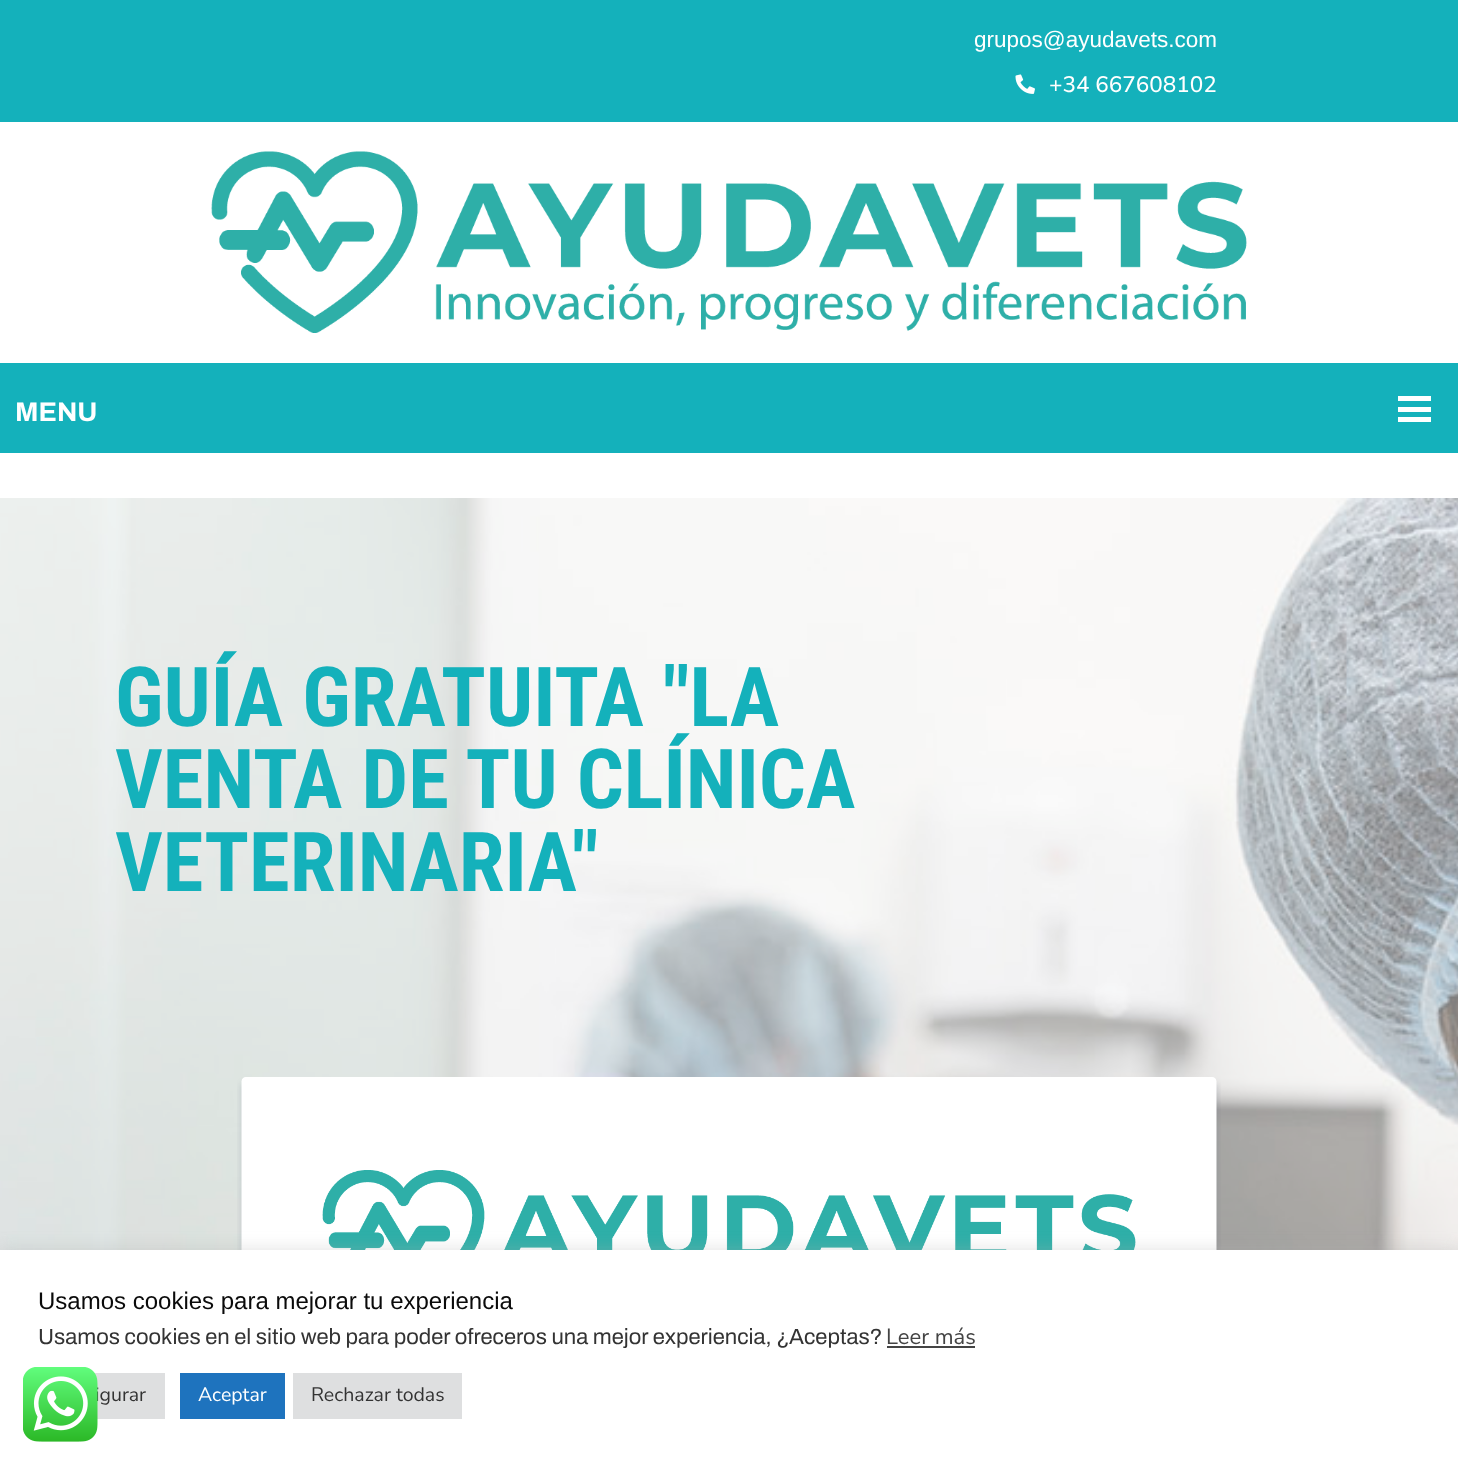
<?xml version="1.0" encoding="UTF-8"?>
<svg xmlns="http://www.w3.org/2000/svg" xmlns:xlink="http://www.w3.org/1999/xlink" width="1458" height="1464">
  <rect width="100%" height="100%" fill="#ffffff" />
  <rect width="1458" height="122" fill="#14b1bb" />
  <image x="1015" y="74" width="20" height="20" xlink:href="image1.png" />
  <image x="211" y="151" width="1036" height="182" xlink:href="image2.png" />
  <rect y="363" width="1458" height="90" fill="#14b1bb" />
  <rect x="1398" y="396" width="33" height="5" fill="#ffffff" />
  <rect x="1398" y="407" width="33" height="5" fill="#ffffff" />
  <rect x="1398" y="417" width="33" height="5" fill="#ffffff" />
  <image x="0" y="498" width="1458" height="752" xlink:href="image3.png" />
  <image x="237" y="1077" width="984" height="173" xlink:href="image4.png" />
  <rect y="1248" width="1458" height="215" fill="#acabab" fill-opacity="0.3" filter="blur(7.5px)" />
  <rect y="1250" width="1458" height="214" fill="#ffffff" />
  <rect x="887" y="1346" width="88" height="2" fill="#444444" />
  <rect x="94" y="1373" width="71" height="46" fill="#dedfe0" />
  <rect x="180" y="1373" width="105" height="46" fill="#1e73be" />
  <rect x="293" y="1373" width="169" height="46" fill="#dedfe0" />
  <text x="974" y="47" style="font-family: Liberation Sans; font-size: 22.5px; fill: #ffffff">grupos@ayudavets.com</text>
  <text x="1049" y="92" style="font-family: Nunito Sans; font-size: 22.5px; font-weight: 500; fill: #ffffff">+34 667608102</text>
  <text x="15" y="421" style="font-family: Archivo; font-size: 27px; font-weight: bold; fill: #ffffff">MENU</text>
  <text x="115" y="726" style="font-family: Roboto Condensed; font-size: 82.75px; font-weight: bold; fill: #14b1bb">GUÍA GRATUITA "LA</text>
  <text x="115" y="808" style="font-family: Roboto Condensed; font-size: 82.75px; font-weight: bold; fill: #14b1bb">VENTA DE TU CLÍNICA</text>
  <text x="115" y="891" style="font-family: Roboto Condensed; font-size: 82.75px; font-weight: bold; fill: #14b1bb">VETERINARIA"</text>
  <text x="38" y="1309" style="font-family: Liberation Sans; font-size: 24px; fill: #0a0a0a">Usamos cookies para mejorar tu experiencia</text>
  <text x="38" y="1344" style="font-family: Archivo; font-size: 22px; fill: #333333">Usamos cookies en el sitio web para poder ofreceros una mejor experiencia, ¿Aceptas?</text>
  <text x="886" y="1344" style="font-family: Nunito Sans; font-size: 22px; fill: #444444">Leer más</text>
  <text x="95" y="1401" style="font-family: Nunito Sans; font-size: 19.5px; fill: #333333">igurar</text>
  <text x="198" y="1401" style="font-family: Nunito Sans; font-size: 19.5px; fill: #ffffff">Aceptar</text>
  <text x="311" y="1401" style="font-family: Nunito Sans; font-size: 19.5px; fill: #333333">Rechazar todas</text>
  <image x="23" y="1367" width="75" height="75" xlink:href="image5.png" />
</svg>
